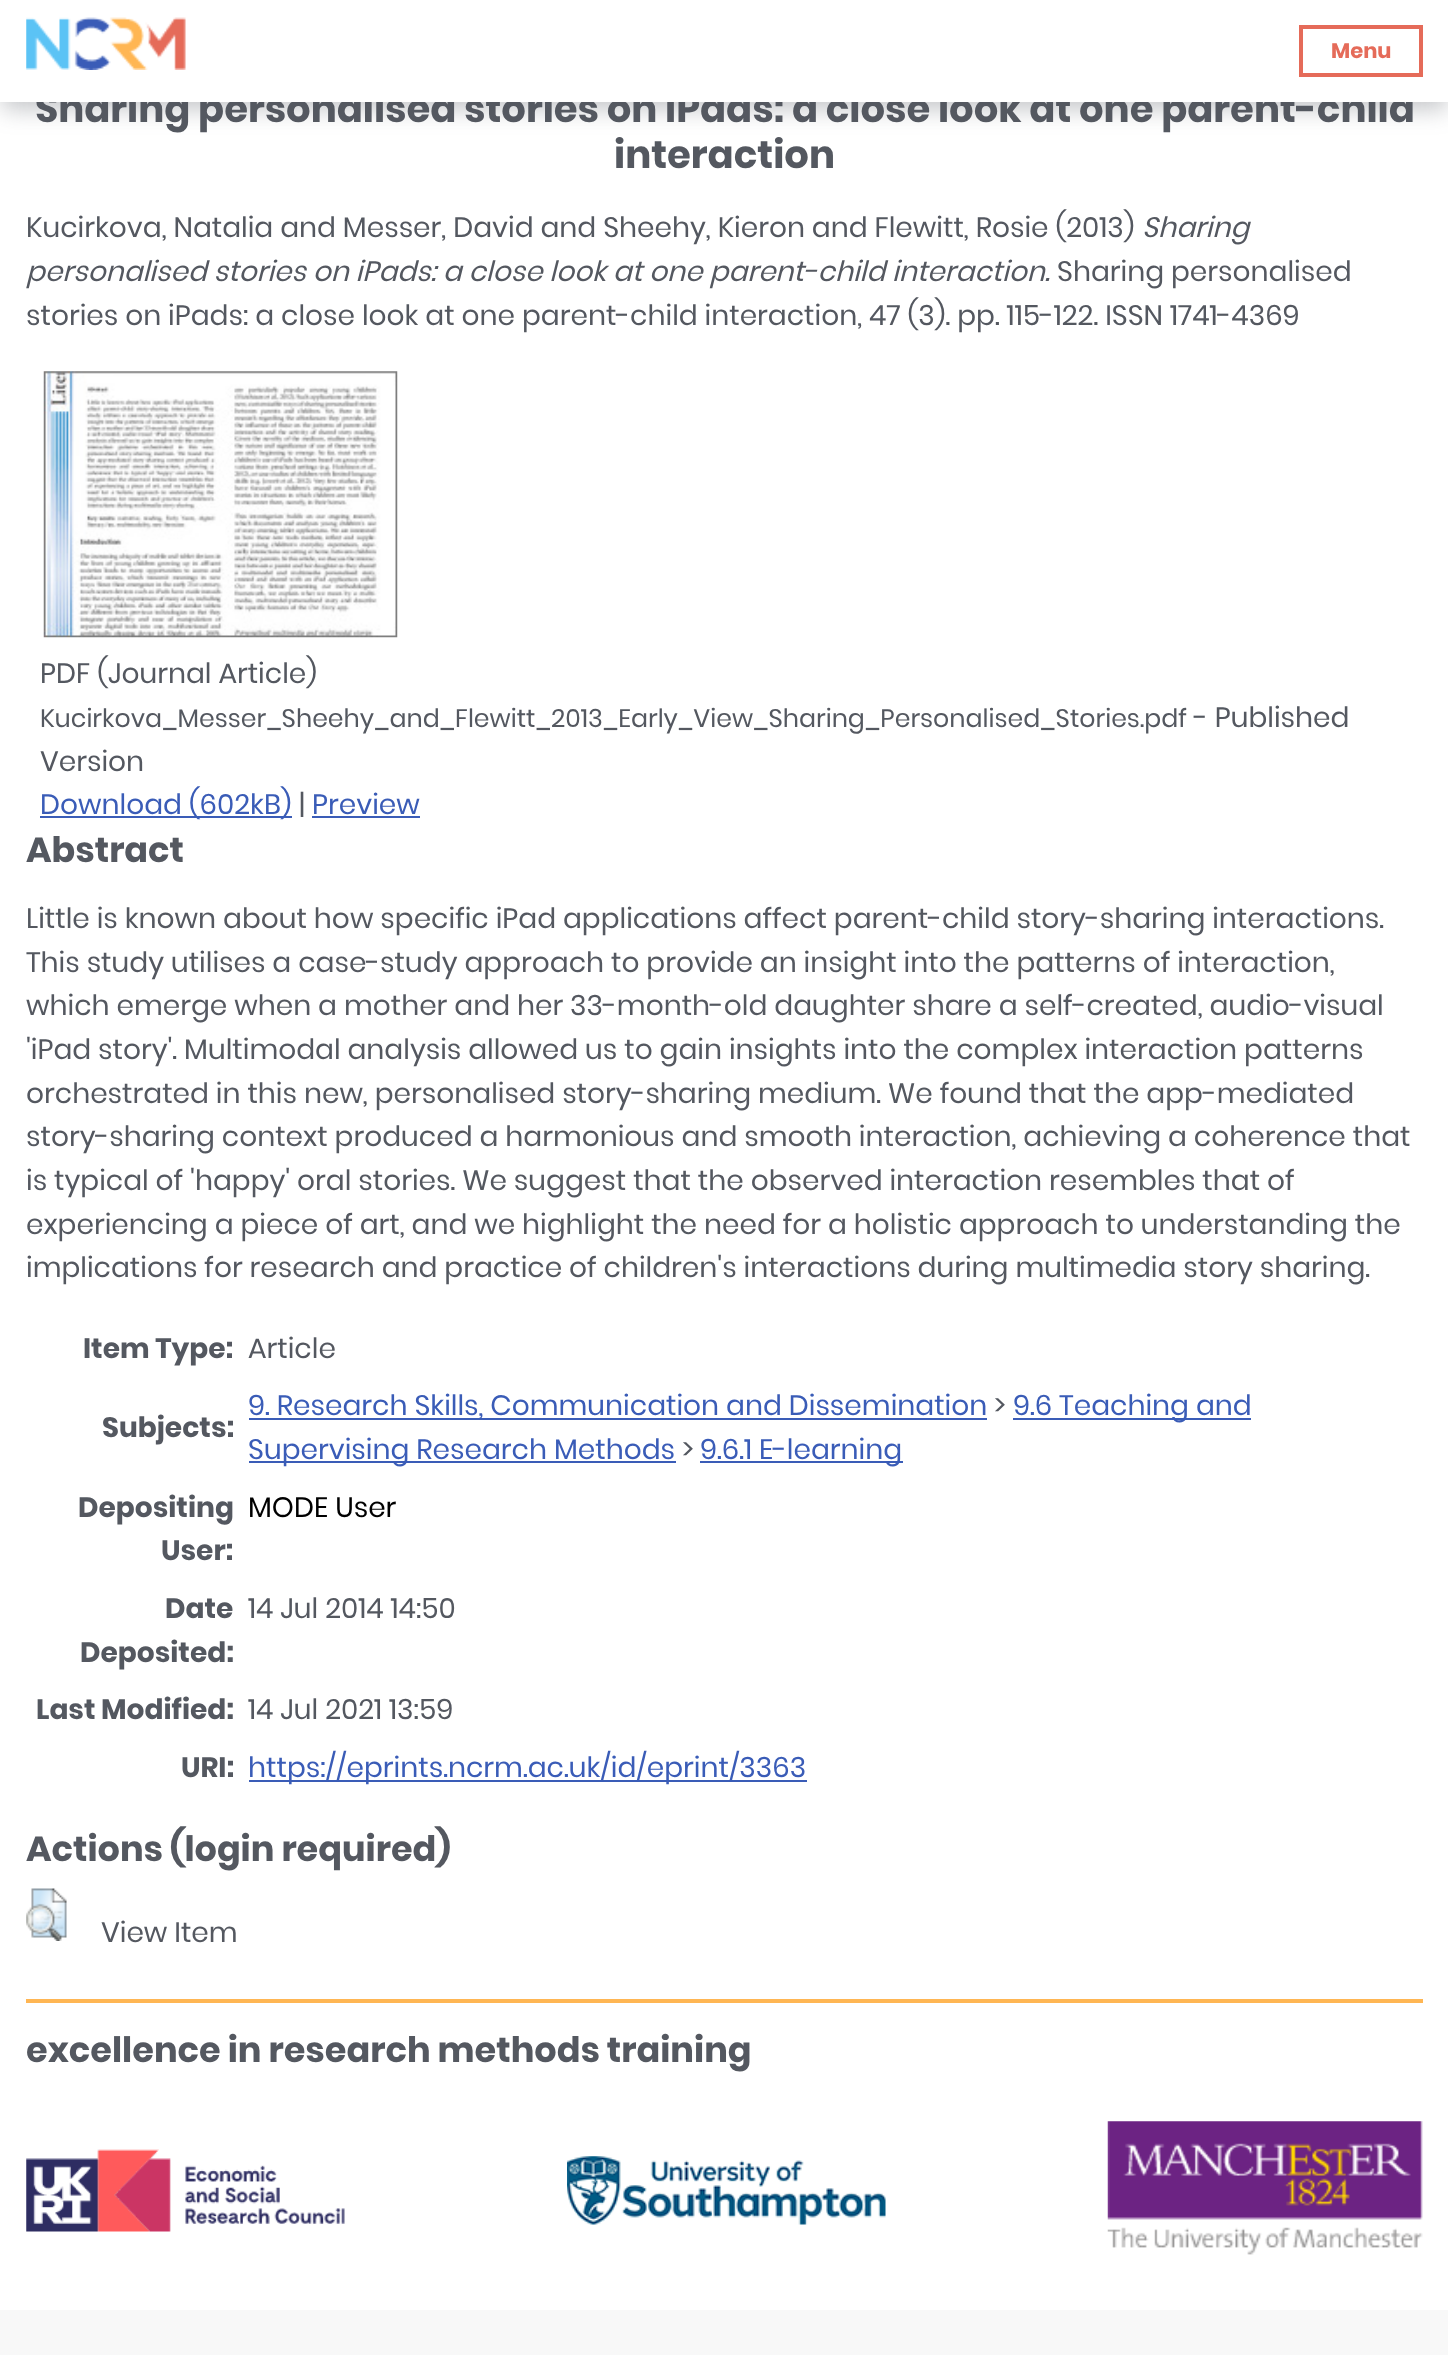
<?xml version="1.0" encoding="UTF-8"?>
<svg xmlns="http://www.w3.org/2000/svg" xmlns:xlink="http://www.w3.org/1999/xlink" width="1448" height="2355">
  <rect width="100%" height="100%" fill="#ffffff" />
  <rect x="2" y="11" width="1445" height="98" fill="#545860" fill-opacity="0.35" filter="blur(11.5px)" />
  <image x="43" y="371" width="355" height="267" xlink:href="image2.png" />
  <rect x="40" y="816" width="252" height="2" fill="#3a5cb7" />
  <rect x="312" y="816" width="108" height="2" fill="#3a5cb7" />
  <rect x="249" y="1418" width="738" height="2" fill="#3a5cb7" />
  <rect x="1013" y="1418" width="238" height="2" fill="#3a5cb7" />
  <rect x="249" y="1461" width="427" height="2" fill="#3a5cb7" />
  <rect x="700" y="1461" width="203" height="2" fill="#3a5cb7" />
  <rect x="249" y="1780" width="558" height="2" fill="#3a5cb7" />
  <image x="26" y="1888" width="41" height="53" xlink:href="image3.png" />
  <rect x="26" y="1999" width="1397" height="4" fill="#ffb653" />
  <image x="26" y="2149" width="319" height="83" xlink:href="image4.png" />
  <image x="567" y="2156" width="319" height="69" xlink:href="image5.png" />
  <image x="1107" y="2121" width="316" height="134" xlink:href="image6.png" />
  <rect y="2310" width="1448" height="45" fill="#f8f8f8" />
  <text x="35" y="122" style="font-family: Poppins; font-size: 38.5px; font-weight: bold; fill: #545860">Sharing personalised stories on iPads: a close look at one parent-child</text>
  <rect width="1448" height="102" fill="#ffffff" />
  <rect x="1301" y="27" width="120" height="48" fill="none" stroke="#e56b59" stroke-width="4" />
  <text x="1331" y="58" style="font-family: Poppins; font-size: 21px; font-weight: bold; fill: #e56b59">Menu</text>
  <image x="26" y="17" width="160" height="53" xlink:href="image1.png" />
  <text x="614" y="168" style="font-family: Poppins; font-size: 38.5px; font-weight: bold; fill: #545860">interaction</text>
  <text x="26" y="237" style="font-family: Poppins; font-size: 28px; fill: #545860">Kucirkova, Natalia and Messer, David and Sheehy, Kieron and Flewitt, Rosie (2013)</text>
  <text x="1142" y="237" style="font-family: Poppins; font-size: 28px; font-style: italic; fill: #545860">Sharing</text>
  <text x="26" y="281" style="font-family: Poppins; font-size: 28px; font-style: italic; fill: #545860">personalised stories on iPads: a close look at one parent-child interaction.</text>
  <text x="1057" y="281" style="font-family: Poppins; font-size: 28px; fill: #545860">Sharing personalised</text>
  <text x="26" y="325" style="font-family: Poppins; font-size: 28px; fill: #545860">stories on iPads: a close look at one parent-child interaction, 47 (3). pp. 115-122. ISSN 1741-4369</text>
  <text x="40" y="683" style="font-family: Poppins; font-size: 28px; fill: #545860">PDF (Journal Article)</text>
  <text x="40" y="727" style="font-family: Poppins; font-size: 25.2px; fill: #545860">Kucirkova_Messer_Sheehy_and_Flewitt_2013_Early_View_Sharing_Personalised_Stories.pdf</text>
  <text x="1194" y="727" style="font-family: Poppins; font-size: 28px; fill: #545860">- Published</text>
  <text x="40" y="771" style="font-family: Poppins; font-size: 28px; fill: #545860">Version</text>
  <text x="40" y="814" style="font-family: Poppins; font-size: 28px; fill: #3a5cb7">Download (602kB)</text>
  <text x="299" y="814" style="font-family: Poppins; font-size: 28px; fill: #545860">|</text>
  <text x="312" y="814" style="font-family: Poppins; font-size: 28px; fill: #3a5cb7">Preview</text>
  <text x="26" y="862" style="font-family: Poppins; font-size: 35px; font-weight: bold; fill: #545860">Abstract</text>
  <text x="26" y="928" style="font-family: Poppins; font-size: 28px; fill: #545860">Little is known about how specific iPad applications affect parent-child story-sharing interactions.</text>
  <text x="26" y="972" style="font-family: Poppins; font-size: 28px; fill: #545860">This study utilises a case-study approach to provide an insight into the patterns of interaction,</text>
  <text x="26" y="1015" style="font-family: Poppins; font-size: 28px; fill: #545860">which emerge when a mother and her 33-month-old daughter share a self-created, audio-visual</text>
  <text x="26" y="1059" style="font-family: Poppins; font-size: 28px; fill: #545860">'iPad story'. Multimodal analysis allowed us to gain insights into the complex interaction patterns</text>
  <text x="26" y="1103" style="font-family: Poppins; font-size: 28px; fill: #545860">orchestrated in this new, personalised story-sharing medium. We found that the app-mediated</text>
  <text x="26" y="1146" style="font-family: Poppins; font-size: 28px; fill: #545860">story-sharing context produced a harmonious and smooth interaction, achieving a coherence that</text>
  <text x="26" y="1190" style="font-family: Poppins; font-size: 28px; fill: #545860">is typical of 'happy' oral stories. We suggest that the observed interaction resembles that of</text>
  <text x="26" y="1234" style="font-family: Poppins; font-size: 28px; fill: #545860">experiencing a piece of art, and we highlight the need for a holistic approach to understanding the</text>
  <text x="26" y="1277" style="font-family: Poppins; font-size: 28px; fill: #545860">implications for research and practice of children's interactions during multimedia story sharing.</text>
  <text x="83" y="1358" style="font-family: Poppins; font-size: 28px; font-weight: bold; fill: #545860">Item Type:</text>
  <text x="248" y="1358" style="font-family: Poppins; font-size: 28px; fill: #545860">Article</text>
  <text x="102" y="1437" style="font-family: Poppins; font-size: 28px; font-weight: bold; fill: #545860">Subjects:</text>
  <text x="248" y="1415" style="font-family: Poppins; font-size: 28px; fill: #3a5cb7">9. Research Skills, Communication and Dissemination</text>
  <text x="994" y="1415" style="font-family: Poppins; font-size: 28px; fill: #545860">&gt;</text>
  <text x="1013" y="1415" style="font-family: Poppins; font-size: 28px; fill: #3a5cb7">9.6 Teaching and</text>
  <text x="248" y="1459" style="font-family: Poppins; font-size: 28px; fill: #3a5cb7">Supervising Research Methods</text>
  <text x="682" y="1459" style="font-family: Poppins; font-size: 28px; fill: #545860">&gt;</text>
  <text x="700" y="1459" style="font-family: Poppins; font-size: 28px; fill: #3a5cb7">9.6.1 E-learning</text>
  <text x="78" y="1517" style="font-family: Poppins; font-size: 28px; font-weight: bold; fill: #545860">Depositing</text>
  <text x="161" y="1560" style="font-family: Poppins; font-size: 28px; font-weight: bold; fill: #545860">User:</text>
  <text x="248" y="1517" style="font-family: Poppins; font-size: 28px; fill: #000000">MODE User</text>
  <text x="165" y="1618" style="font-family: Poppins; font-size: 28px; font-weight: bold; fill: #545860">Date</text>
  <text x="80" y="1662" style="font-family: Poppins; font-size: 28px; font-weight: bold; fill: #545860">Deposited:</text>
  <text x="248" y="1618" style="font-family: Poppins; font-size: 28px; fill: #545860">14 Jul 2014 14:50</text>
  <text x="36" y="1719" style="font-family: Poppins; font-size: 28px; font-weight: bold; fill: #545860">Last Modified:</text>
  <text x="248" y="1719" style="font-family: Poppins; font-size: 28px; fill: #545860">14 Jul 2021 13:59</text>
  <text x="181" y="1777" style="font-family: Poppins; font-size: 28px; font-weight: bold; fill: #545860">URI:</text>
  <text x="248" y="1777" style="font-family: Poppins; font-size: 28px; fill: #3a5cb7">https://eprints.ncrm.ac.uk/id/eprint/3363</text>
  <text x="26" y="1861" style="font-family: Poppins; font-size: 35px; font-weight: bold; fill: #545860">Actions (login required)</text>
  <text x="101" y="1942" style="font-family: Poppins; font-size: 28px; fill: #545860">View Item</text>
  <text x="26" y="2062" style="font-family: Poppins; font-size: 35px; font-weight: bold; fill: #545860">excellence in research methods training</text>
</svg>
